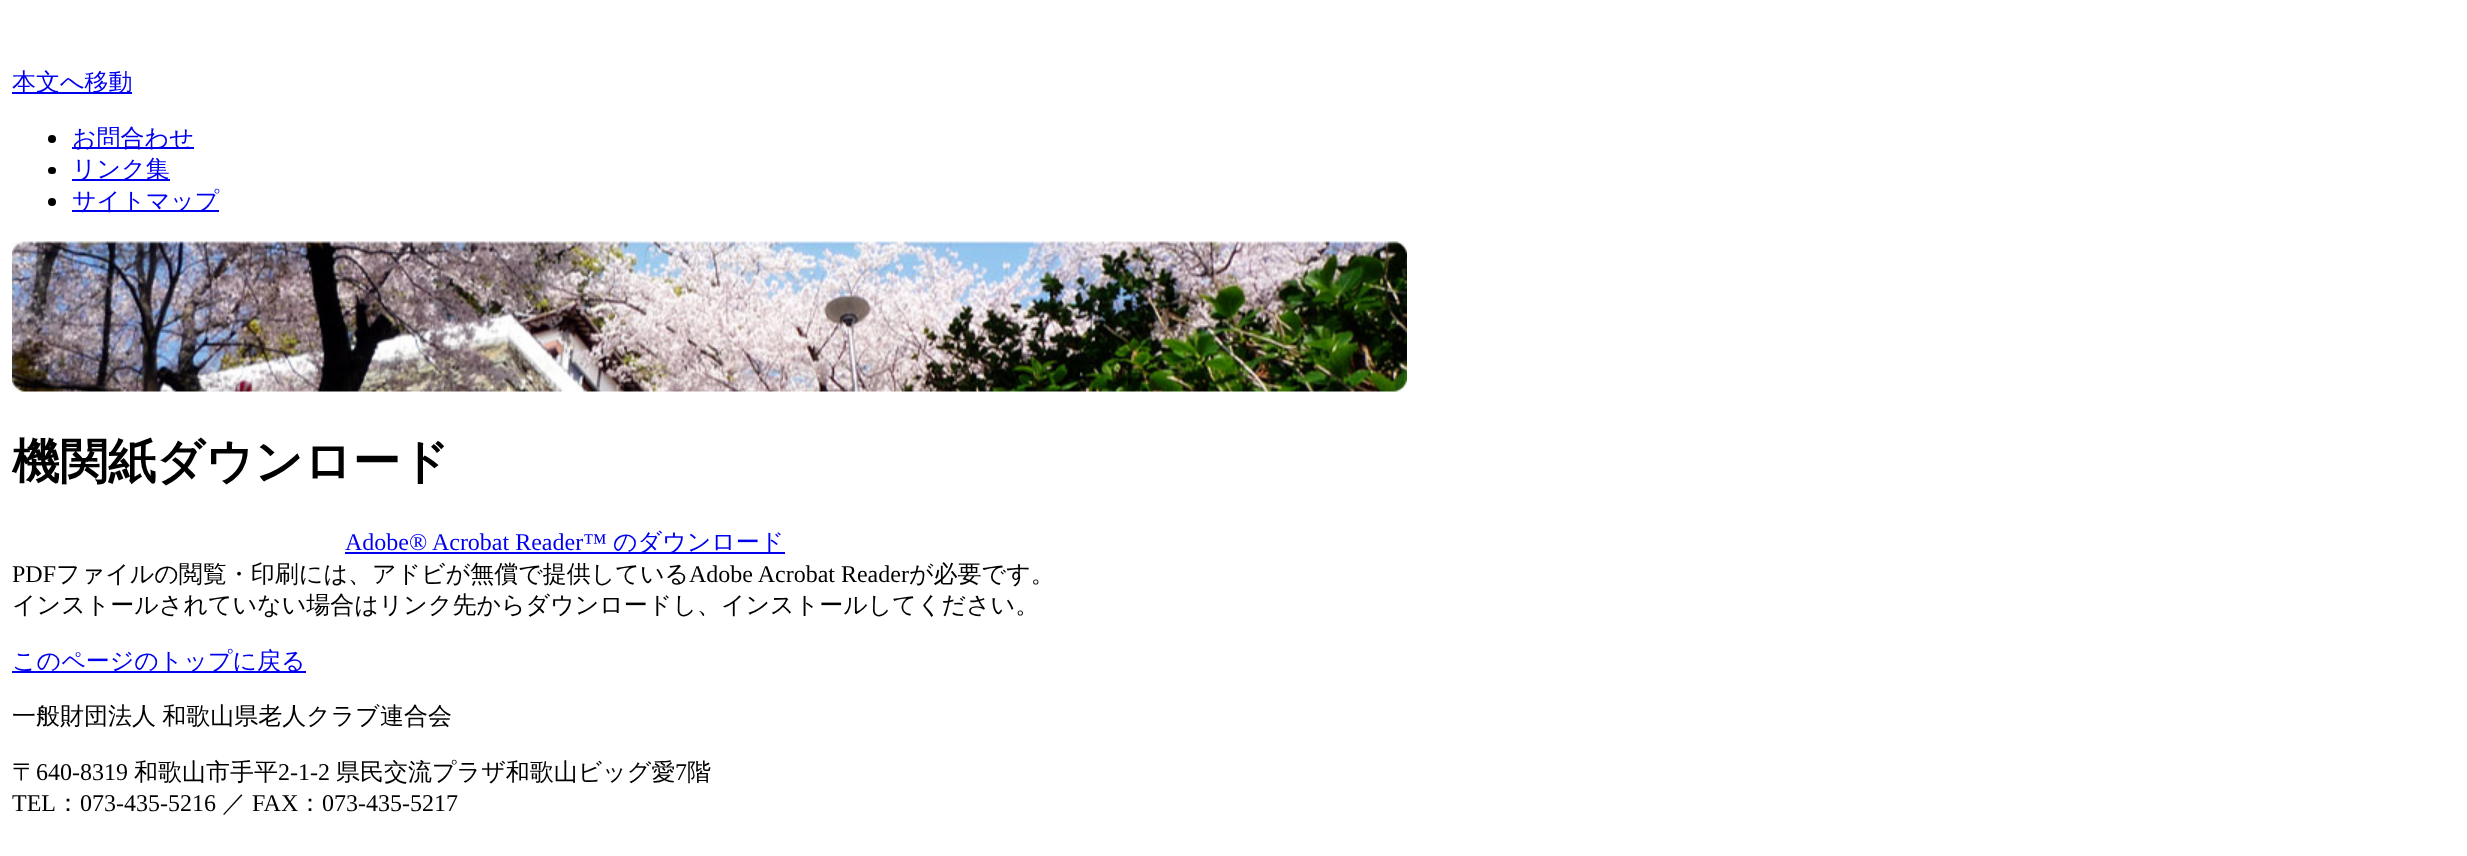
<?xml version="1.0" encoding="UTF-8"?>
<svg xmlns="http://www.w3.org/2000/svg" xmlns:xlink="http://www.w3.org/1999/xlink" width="2467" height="856">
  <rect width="100%" height="100%" fill="#ffffff" />
  <rect x="12" y="92" width="120" height="2" fill="#0000ee" />
  <circle cx="52" cy="139" r="4" fill="#000000" />
  <rect x="72" y="147" width="122" height="2" fill="#0000ee" />
  <rect x="48" y="167" width="8" height="7" rx="3.5" fill="#000000" />
  <rect x="72" y="179" width="98" height="2" fill="#0000ee" />
  <circle cx="52" cy="202" r="4" fill="#000000" />
  <rect x="72" y="210" width="147" height="2" fill="#0000ee" />
  <image x="12" y="241" width="1395" height="151" xlink:href="image1.png" />
  <rect x="345" y="552" width="440" height="2" fill="#0000ee" />
  <rect x="12" y="671" width="294" height="2" fill="#0000ee" />
  <text x="12" y="90" style="font-family: WenQuanYi Zen Hei; font-size: 24px; font-weight: 500; fill: #0000ee">本文へ移動</text>
  <text x="72" y="146" style="font-family: WenQuanYi Zen Hei; font-size: 24px; font-weight: 500; fill: #0000ee">お問合わせ</text>
  <text x="72" y="177" style="font-family: WenQuanYi Zen Hei; font-size: 24px; font-weight: 500; fill: #0000ee">リンク集</text>
  <text x="72" y="209" style="font-family: WenQuanYi Zen Hei; font-size: 24px; font-weight: 500; fill: #0000ee">サイトマップ</text>
  <text x="12" y="478" style="font-family: WenQuanYi Zen Hei; font-size: 48px; font-weight: bold; fill: #000000">機関紙ダウンロード</text>
  <text x="345" y="550" style="font-family: Liberation Serif; font-size: 24px; fill: #0000ee">Adobe® Acrobat Reader™</text>
  <text x="613" y="550" style="font-family: WenQuanYi Zen Hei; font-size: 24px; font-weight: 500; fill: #0000ee">のダウンロード</text>
  <text x="12" y="582" style="font-family: Liberation Serif; font-size: 24px; fill: #000000">PDF</text>
  <text x="56" y="582" style="font-family: WenQuanYi Zen Hei; font-size: 24px; font-weight: 500; fill: #000000">ファイルの閲覧・印刷には、アドビが無償で提供している</text>
  <text x="689" y="582" style="font-family: Liberation Serif; font-size: 24px; fill: #000000">Adobe Acrobat Reader</text>
  <text x="909" y="582" style="font-family: WenQuanYi Zen Hei; font-size: 24px; font-weight: 500; fill: #000000">が必要です。</text>
  <text x="12" y="613" style="font-family: WenQuanYi Zen Hei; font-size: 24px; font-weight: 500; fill: #000000">インストールされていない場合はリンク先からダウンロードし、インストールしてください。</text>
  <text x="12" y="669" style="font-family: WenQuanYi Zen Hei; font-size: 24px; font-weight: 500; fill: #0000ee">このページのトップに戻る</text>
  <text x="12" y="724" word-spacing="-1" style="font-family: WenQuanYi Zen Hei; font-size: 24px; font-weight: 500; fill: #000000">一般財団法人 和歌山県老人クラブ連合会</text>
  <text x="12" y="780" style="font-family: WenQuanYi Zen Hei; font-size: 24px; font-weight: 500; fill: #000000">〒</text>
  <text x="36" y="780" style="font-family: Liberation Serif; font-size: 24px; fill: #000000">640-8319</text>
  <text x="134" y="780" style="font-family: WenQuanYi Zen Hei; font-size: 24px; font-weight: 500; fill: #000000">和歌山市手平</text>
  <text x="278" y="780" style="font-family: Liberation Serif; font-size: 24px; fill: #000000">2-1-2</text>
  <text x="336" y="780" style="font-family: WenQuanYi Zen Hei; font-size: 24px; font-weight: 500; fill: #000000">県民交流プラザ和歌山ビッグ愛</text>
  <text x="675" y="780" style="font-family: Liberation Serif; font-size: 24px; fill: #000000">7</text>
  <text x="687" y="780" style="font-family: WenQuanYi Zen Hei; font-size: 24px; font-weight: 500; fill: #000000">階</text>
  <text x="12" y="811" style="font-family: Liberation Serif; font-size: 24px; fill: #000000">TEL</text>
  <text x="56" y="811" style="font-family: WenQuanYi Zen Hei; font-size: 24px; font-weight: 500; fill: #000000">：</text>
  <text x="80" y="811" style="font-family: Liberation Serif; font-size: 24px; fill: #000000">073-435-5216</text>
  <text x="222" y="811" style="font-family: WenQuanYi Zen Hei; font-size: 24px; font-weight: 500; fill: #000000">／</text>
  <text x="252" y="811" style="font-family: Liberation Serif; font-size: 24px; fill: #000000">FAX</text>
  <text x="298" y="811" style="font-family: WenQuanYi Zen Hei; font-size: 24px; font-weight: 500; fill: #000000">：</text>
  <text x="322" y="811" style="font-family: Liberation Serif; font-size: 24px; fill: #000000">073-435-5217</text>
</svg>
